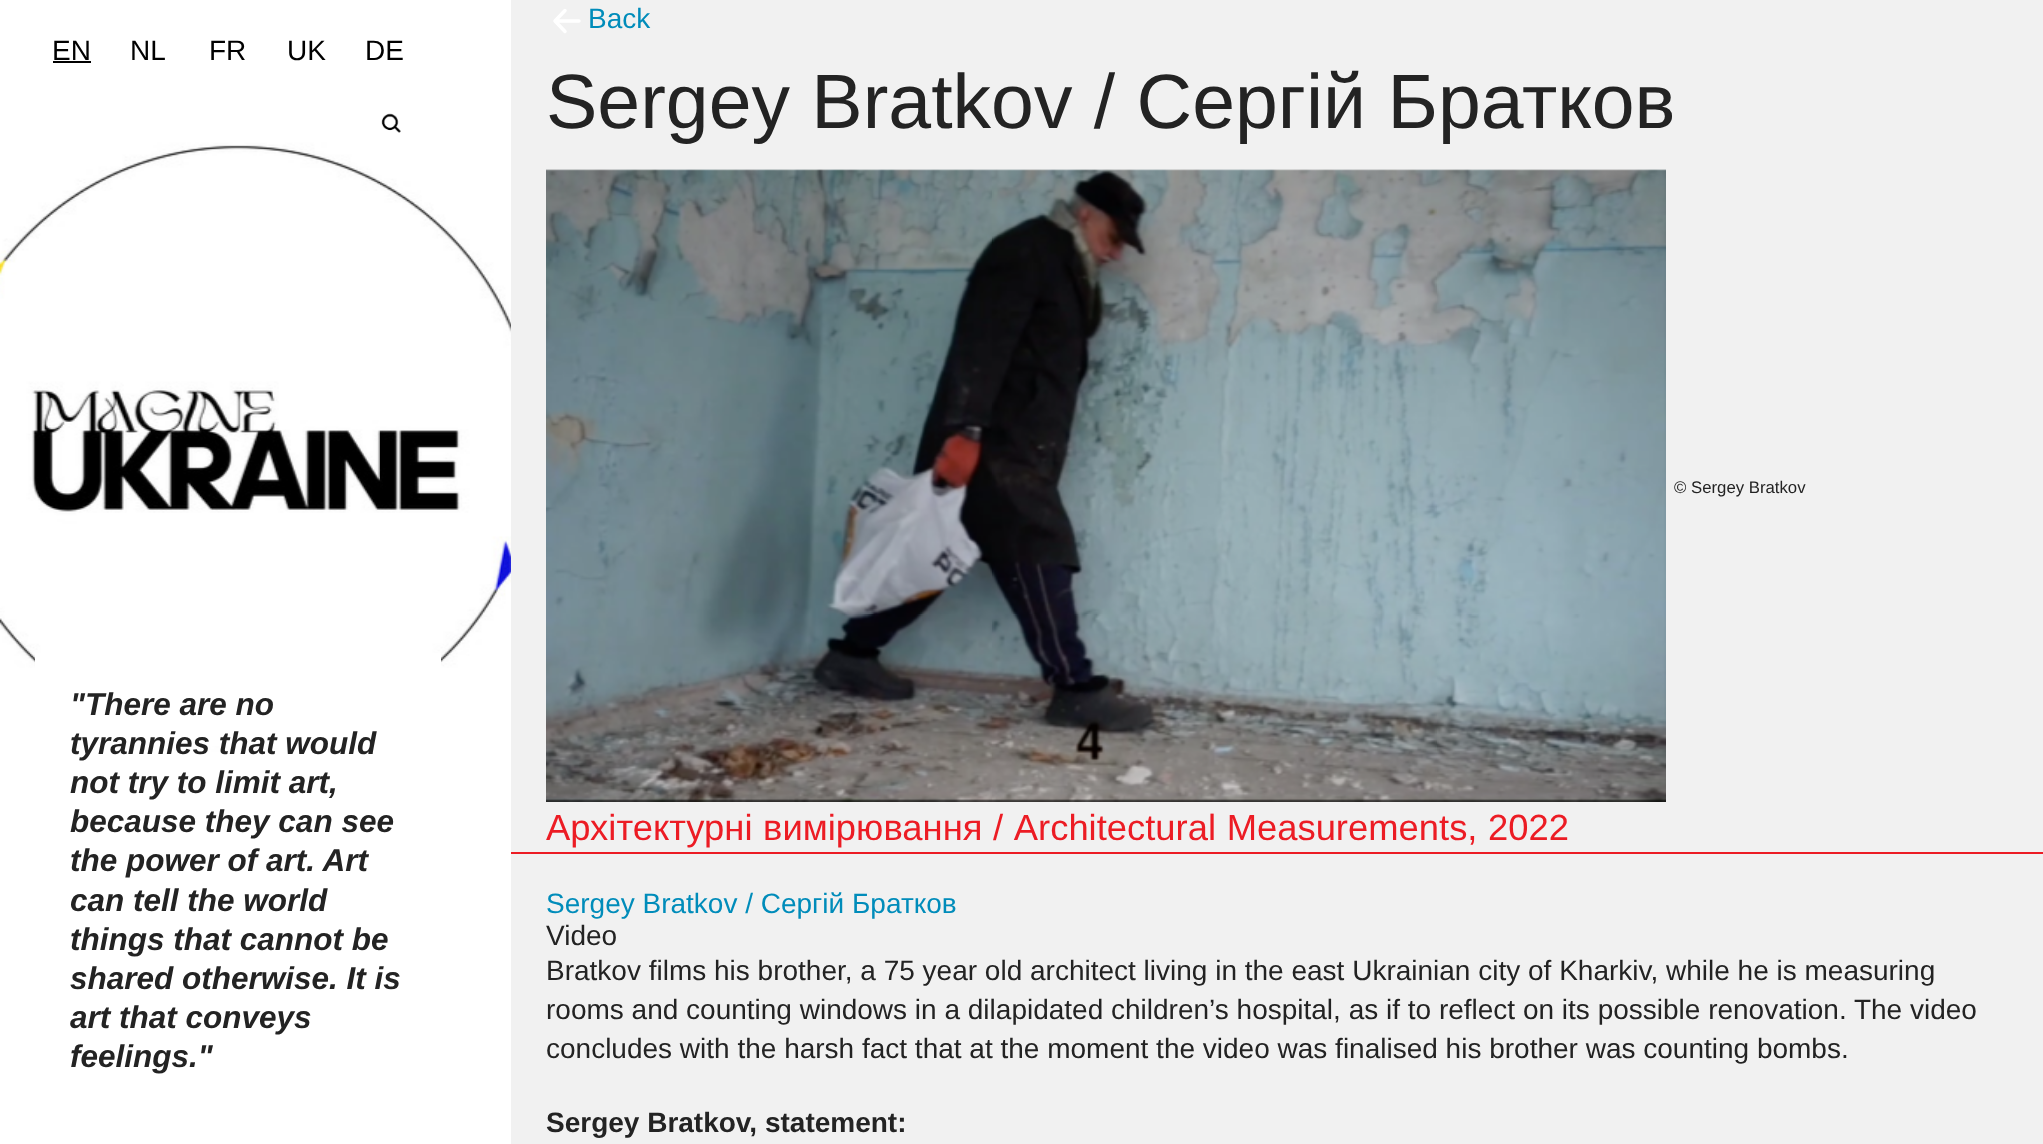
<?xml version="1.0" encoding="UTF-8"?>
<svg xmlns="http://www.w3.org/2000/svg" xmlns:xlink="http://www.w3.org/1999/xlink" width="2043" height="1144">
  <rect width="100%" height="100%" fill="#ffffff" />
  <image x="0" y="0" width="511" height="1144" xlink:href="image1.png" />
  <rect x="53" y="61" width="38" height="2" fill="#000000" />
  <image x="381" y="113" width="20" height="20" xlink:href="image2.png" />
  <rect x="35" y="653" width="406" height="93" fill="#ffffff" />
  <rect x="511" width="1532" height="1144" fill="#f1f1f1" />
  <path d="M 555 21 h 24 m -14 -10.5 l -10 10.5 l 10 10.5" fill="none" stroke="#ffffff" stroke-width="3.5" stroke-linecap="round" stroke-linejoin="round" />
  <image x="546" y="169" width="1120" height="633" xlink:href="image3.png" />
  <rect x="511" y="852" width="1532" height="2" fill="#ec1c24" />
  <text x="52" y="60" style="font-family: Liberation Sans; font-size: 28px; fill: #000000">EN</text>
  <text x="130" y="60" style="font-family: Liberation Sans; font-size: 28px; fill: #000000">NL</text>
  <text x="209" y="60" style="font-family: Liberation Sans; font-size: 28px; fill: #000000">FR</text>
  <text x="287" y="60" style="font-family: Liberation Sans; font-size: 28px; fill: #000000">UK</text>
  <text x="365" y="60" style="font-family: Liberation Sans; font-size: 28px; fill: #000000">DE</text>
  <text x="70" y="715" style="font-family: Liberation Sans; font-size: 31.5px; font-weight: bold; font-style: italic; fill: #232323">"There are no</text>
  <text x="70" y="754" style="font-family: Liberation Sans; font-size: 31.5px; font-weight: bold; font-style: italic; fill: #232323">tyrannies that would</text>
  <text x="70" y="793" style="font-family: Liberation Sans; font-size: 31.5px; font-weight: bold; font-style: italic; fill: #232323">not try to limit art,</text>
  <text x="70" y="832" style="font-family: Liberation Sans; font-size: 31.5px; font-weight: bold; font-style: italic; fill: #232323">because they can see</text>
  <text x="70" y="871" style="font-family: Liberation Sans; font-size: 31.5px; font-weight: bold; font-style: italic; fill: #232323">the power of art. Art</text>
  <text x="70" y="911" style="font-family: Liberation Sans; font-size: 31.5px; font-weight: bold; font-style: italic; fill: #232323">can tell the world</text>
  <text x="70" y="950" style="font-family: Liberation Sans; font-size: 31.5px; font-weight: bold; font-style: italic; fill: #232323">things that cannot be</text>
  <text x="70" y="989" style="font-family: Liberation Sans; font-size: 31.5px; font-weight: bold; font-style: italic; fill: #232323">shared otherwise. It is</text>
  <text x="70" y="1028" style="font-family: Liberation Sans; font-size: 31.5px; font-weight: bold; font-style: italic; fill: #232323">art that conveys</text>
  <text x="70" y="1067" style="font-family: Liberation Sans; font-size: 31.5px; font-weight: bold; font-style: italic; fill: #232323">feelings."</text>
  <text x="588" y="28" style="font-family: Liberation Sans; font-size: 28px; fill: #008cba">Back</text>
  <text x="546" y="128" style="font-family: Liberation Sans; font-size: 77px; fill: #232323">Sergey Bratkov / Сергій Братков</text>
  <text x="1674" y="493" style="font-family: Liberation Sans; font-size: 16.75px; fill: #232323">© Sergey Bratkov</text>
  <text x="546" y="840" word-spacing="0.5" style="font-family: Liberation Sans; font-size: 36.4px; fill: #ec1c24">Архітектурні вимірювання / Architectural Measurements, 2022</text>
  <text x="546" y="913" style="font-family: Liberation Sans; font-size: 28px; fill: #008cba">Sergey Bratkov / Сергій Братков</text>
  <text x="546" y="945" style="font-family: Liberation Sans; font-size: 28px; fill: #232323">Video</text>
  <text x="546" y="980" style="font-family: Liberation Sans; font-size: 28px; fill: #232323">Bratkov films his brother, a 75 year old architect living in the east Ukrainian city of Kharkiv, while he is measuring</text>
  <text x="546" y="1019" style="font-family: Liberation Sans; font-size: 28px; fill: #232323">rooms and counting windows in a dilapidated children’s hospital, as if to reflect on its possible renovation. The video</text>
  <text x="546" y="1058" style="font-family: Liberation Sans; font-size: 28px; fill: #232323">concludes with the harsh fact that at the moment the video was finalised his brother was counting bombs.</text>
  <text x="546" y="1132" style="font-family: Liberation Sans; font-size: 28px; font-weight: bold; fill: #232323">Sergey Bratkov, statement:</text>
</svg>
